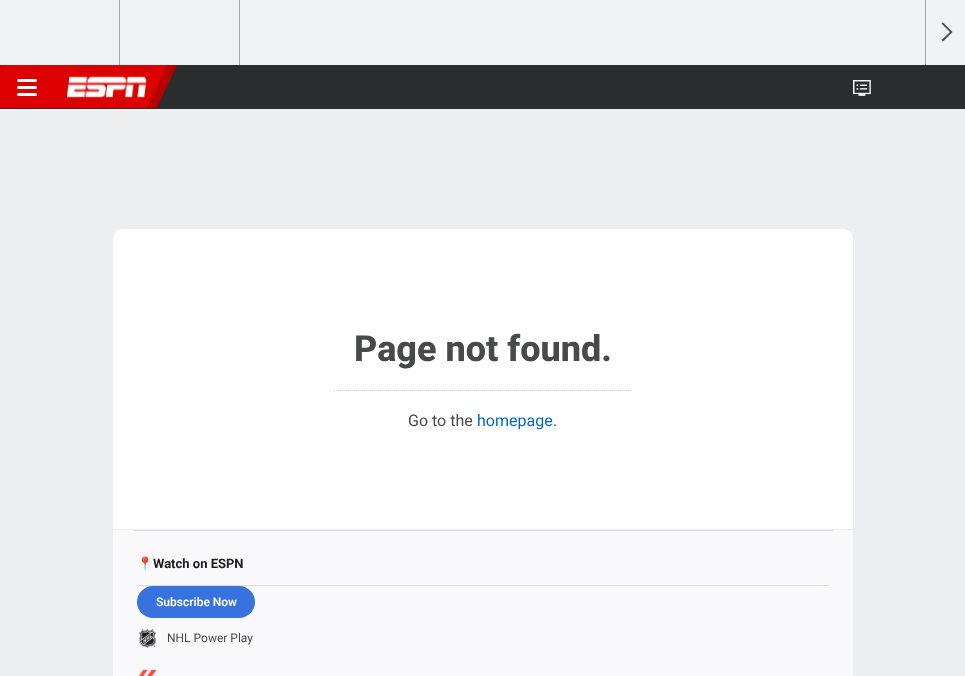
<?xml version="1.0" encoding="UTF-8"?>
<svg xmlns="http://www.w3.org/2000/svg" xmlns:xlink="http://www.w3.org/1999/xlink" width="965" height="676">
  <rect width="100%" height="100%" fill="#edeef0" />
  <rect width="965" height="65" fill="#f1f2f3" />
  <rect x="119" width="1" height="65" fill="#a5a6a7" />
  <rect x="239" width="1" height="65" fill="#a5a6a7" />
  <rect x="925" width="1" height="65" fill="#a5a6a7" />
  <path d="M 943 22.5 l -1.5 1 l 8.5 8.5 l -8.5 8 l 1.5 1.5 l 9.5 -9.5 z" fill="#48494a" />
  <rect y="65" width="965" height="44" fill="#2b2c2d" />
  <path d="M 54 65 h 123 l -20 43 h -123 z" fill="#b40000" />
  <path d="M 1 65 h 166 l -20 43 h -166 z" fill="#dd0000" />
  <image x="67" y="76" width="80" height="22" xlink:href="image1.png" />
  <rect x="17" y="86" width="20" height="3" rx="1.5" fill="#ffffff" />
  <rect x="17" y="79" width="20" height="3" rx="1.5" fill="#ffffff" />
  <rect x="17" y="93" width="20" height="3" rx="1.5" fill="#ffffff" />
  <image x="853" y="80" width="18" height="16" xlink:href="image2.png" />
  <path d="M 123 229 h 720 c 5.5 0 10 4.5 10 10 v 290 h -740 v -290 c 0 -5.5 4.5 -10 10 -10 z" fill="#ffffff" />
  <path d="M 334 390.5 h 297" fill="none" stroke="#cbccce" stroke-dasharray="1 1" />
  <rect x="113" y="530" width="740" height="146" fill="#f9f9fb" />
  <rect x="133" y="530" width="700" height="1" fill="#dcdddf" />
  <rect x="137" y="585" width="692" height="1" fill="#dcdddf" />
  <rect x="137" y="586" width="118" height="32" rx="16" fill="#3772df" />
  <image x="139" y="629" width="17" height="19" xlink:href="image3.png" />
  <image x="139" y="669" width="18" height="7" xlink:href="image4.png" />
  <text x="354" y="361" style="font-family: Roboto; font-size: 36px; font-weight: 800; fill: #48494a">Page not found.</text>
  <text x="408" y="426" style="font-family: Roboto; font-size: 16px; fill: #48494a">Go to the</text>
  <text x="477" y="426" style="font-family: Roboto; font-size: 16px; fill: #0066cc">homepage</text>
  <text x="553" y="426" style="font-family: Roboto; font-size: 16px; fill: #48494a">.</text>
  <text x="137" y="568" style="font-family: Noto Color Emoji; font-size: 13px; font-weight: bold; fill: #1d1e1f">📍</text>
  <text x="153" y="568" style="font-family: Roboto; font-size: 13px; font-weight: bold; fill: #1d1e1f">Watch on ESPN</text>
  <text x="156" y="606" style="font-family: Roboto; font-size: 12px; font-weight: 600; fill: #ffffff">Subscribe Now</text>
  <text x="167" y="642" style="font-family: Roboto; font-size: 12px; fill: #48494a">NHL Power Play</text>
</svg>
